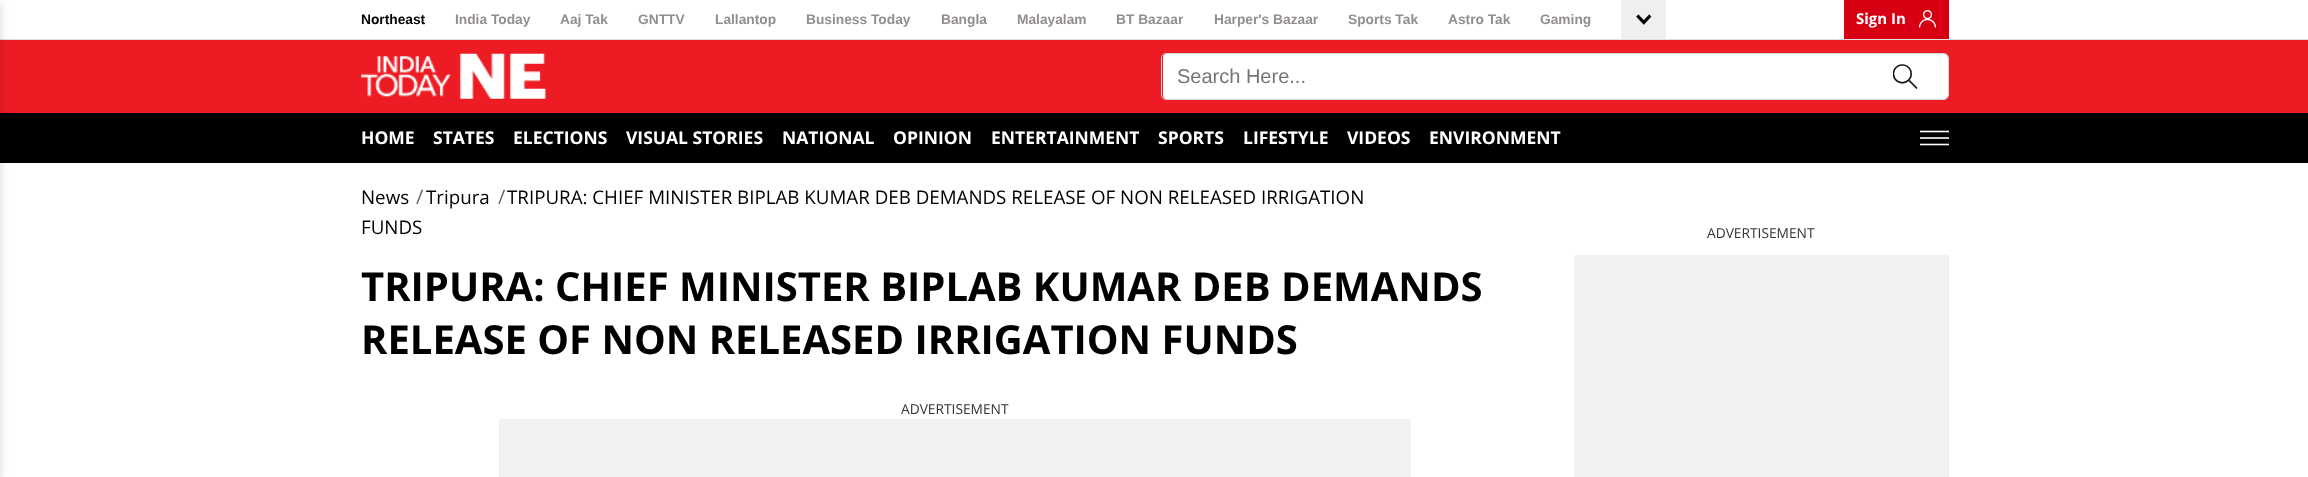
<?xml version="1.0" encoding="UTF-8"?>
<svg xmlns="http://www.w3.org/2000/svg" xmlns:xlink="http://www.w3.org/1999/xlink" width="2308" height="477">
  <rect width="100%" height="100%" fill="#ffffff" />
  <rect y="39" width="2308" height="1" fill="#dfdfdf" />
  <rect y="40" width="2308" height="73" fill="#ed1c24" />
  <rect y="113" width="2308" height="50" fill="#000000" />
  <rect x="-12" y="4" width="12" height="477" fill="#000000" fill-opacity="0.16" filter="blur(4px)" />
  <rect x="1621" width="45" height="39" fill="#efefef" />
  <image x="1636" y="14" width="16" height="11" xlink:href="image1.png" />
  <rect x="1844" width="105" height="39" fill="#d70012" />
  <image x="1919" y="10" width="17" height="18" xlink:href="image2.png" />
  <image x="361" y="53" width="186" height="46" xlink:href="image3.png" />
  <rect x="1163" y="54" width="785" height="45" rx="4" fill="#ffffff" />
  <rect x="1161.5" y="53.5" width="787" height="46" rx="4.5" fill="none" stroke="#ced4da" />
  <image x="1893" y="64" width="25" height="25" xlink:href="image4.png" />
  <path d="M 1920 131.5 h 29" fill="none" stroke="#ffffff" stroke-width="1.6" />
  <rect x="1920" y="137" width="29" height="2" fill="#cccccc" />
  <path d="M 1920 144.5 h 29" fill="none" stroke="#ffffff" stroke-width="1.6" />
  <rect x="499" y="419" width="912" height="58" fill="#f2f2f2" />
  <rect x="1574" y="255" width="375" height="222" fill="#f2f2f2" />
  <text x="361" y="24" style="font-family: Liberation Sans; font-size: 13.75px; font-weight: bold; fill: #000000">Northeast</text>
  <text x="455" y="24" style="font-family: Liberation Sans; font-size: 13.75px; font-weight: bold; fill: #938e8e">India Today</text>
  <text x="560" y="24" style="font-family: Liberation Sans; font-size: 13.75px; font-weight: bold; fill: #938e8e">Aaj Tak</text>
  <text x="638" y="24" style="font-family: Liberation Sans; font-size: 13.75px; font-weight: bold; fill: #938e8e">GNTTV</text>
  <text x="715" y="24" style="font-family: Liberation Sans; font-size: 13.75px; font-weight: bold; fill: #938e8e">Lallantop</text>
  <text x="806" y="24" style="font-family: Liberation Sans; font-size: 13.75px; font-weight: bold; fill: #938e8e">Business Today</text>
  <text x="941" y="24" style="font-family: Liberation Sans; font-size: 13.75px; font-weight: bold; fill: #938e8e">Bangla</text>
  <text x="1017" y="24" style="font-family: Liberation Sans; font-size: 13.75px; font-weight: bold; fill: #938e8e">Malayalam</text>
  <text x="1116" y="24" style="font-family: Liberation Sans; font-size: 13.75px; font-weight: bold; fill: #938e8e">BT Bazaar</text>
  <text x="1214" y="24" style="font-family: Liberation Sans; font-size: 13.75px; font-weight: bold; fill: #938e8e">Harper's Bazaar</text>
  <text x="1348" y="24" style="font-family: Liberation Sans; font-size: 13.75px; font-weight: bold; fill: #938e8e">Sports Tak</text>
  <text x="1448" y="24" style="font-family: Liberation Sans; font-size: 13.75px; font-weight: bold; fill: #938e8e">Astro Tak</text>
  <text x="1540" y="24" style="font-family: Liberation Sans; font-size: 13.75px; font-weight: bold; fill: #938e8e">Gaming</text>
  <text x="1856" y="24" style="font-family: Open Sans; font-size: 15px; font-weight: bold; fill: #ffffff">Sign In</text>
  <text x="1177" y="83" style="font-family: Liberation Sans; font-size: 20px; fill: #757575">Search Here...</text>
  <text x="361" y="144" style="font-family: Open Sans; font-size: 17.5px; font-weight: bold; fill: #ffffff">HOME</text>
  <text x="433" y="144" style="font-family: Open Sans; font-size: 17.5px; font-weight: bold; fill: #ffffff">STATES</text>
  <text x="513" y="144" style="font-family: Open Sans; font-size: 17.5px; font-weight: bold; fill: #ffffff">ELECTIONS</text>
  <text x="626" y="144" style="font-family: Open Sans; font-size: 17.5px; font-weight: bold; fill: #ffffff">VISUAL STORIES</text>
  <text x="782" y="144" style="font-family: Open Sans; font-size: 17.5px; font-weight: bold; fill: #ffffff">NATIONAL</text>
  <text x="893" y="144" style="font-family: Open Sans; font-size: 17.5px; font-weight: bold; fill: #ffffff">OPINION</text>
  <text x="991" y="144" style="font-family: Open Sans; font-size: 17.5px; font-weight: bold; fill: #ffffff">ENTERTAINMENT</text>
  <text x="1158" y="144" style="font-family: Open Sans; font-size: 17.5px; font-weight: bold; fill: #ffffff">SPORTS</text>
  <text x="1243" y="144" style="font-family: Open Sans; font-size: 17.5px; font-weight: bold; fill: #ffffff">LIFESTYLE</text>
  <text x="1347" y="144" style="font-family: Open Sans; font-size: 17.5px; font-weight: bold; fill: #ffffff">VIDEOS</text>
  <text x="1429" y="144" style="font-family: Open Sans; font-size: 17.5px; font-weight: bold; fill: #ffffff">ENVIRONMENT</text>
  <text x="361" y="204" style="font-family: Open Sans; font-size: 18.75px; fill: #000000">News</text>
  <text x="416" y="204" style="font-family: Open Sans; font-size: 20px; fill: #6d6c6c">/</text>
  <text x="426" y="204" style="font-family: Open Sans; font-size: 18.75px; fill: #000000">Tripura</text>
  <text x="498" y="204" style="font-family: Open Sans; font-size: 20px; fill: #6d6c6c">/</text>
  <text x="507" y="204" style="font-family: Open Sans; font-size: 18.75px; fill: #000000">TRIPURA: CHIEF MINISTER BIPLAB KUMAR DEB DEMANDS RELEASE OF NON RELEASED IRRIGATION</text>
  <text x="361" y="234" style="font-family: Open Sans; font-size: 18.75px; fill: #000000">FUNDS</text>
  <text x="361" y="301" style="font-family: Open Sans; font-size: 40px; font-weight: bold; fill: #000000">TRIPURA: CHIEF MINISTER BIPLAB KUMAR DEB DEMANDS</text>
  <text x="361" y="354" style="font-family: Open Sans; font-size: 40px; font-weight: bold; fill: #000000">RELEASE OF NON RELEASED IRRIGATION FUNDS</text>
  <text x="901" y="414" style="font-family: Open Sans; font-size: 13.75px; fill: #323232">ADVERTISEMENT</text>
  <text x="1707" y="238" style="font-family: Open Sans; font-size: 13.75px; fill: #323232">ADVERTISEMENT</text>
</svg>
